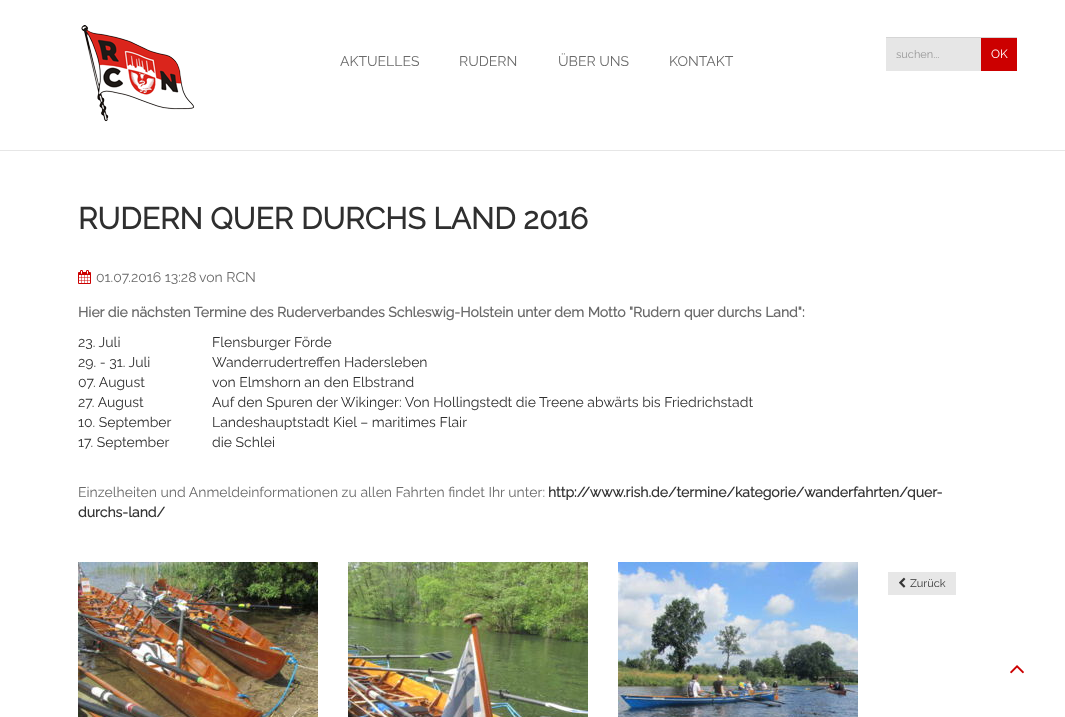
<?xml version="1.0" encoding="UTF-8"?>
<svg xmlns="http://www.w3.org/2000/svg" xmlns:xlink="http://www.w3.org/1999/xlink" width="1065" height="717">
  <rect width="100%" height="100%" fill="#ffffff" />
  <rect y="150" width="1065" height="1" fill="#e6e6e6" />
  <image x="81" y="25" width="114" height="97" xlink:href="image1.png" />
  <rect x="886" y="38" width="95" height="33" fill="#e6e6e6" />
  <rect x="886" y="37" width="131" height="1" fill="#d5d5d5" />
  <rect x="981" y="38" width="36" height="33" fill="#cc0000" />
  <image x="78" y="270" width="13" height="14" xlink:href="image2.png" />
  <image x="78" y="562" width="240" height="155" xlink:href="image3.png" />
  <image x="348" y="562" width="240" height="155" xlink:href="image4.png" />
  <image x="618" y="562" width="240" height="155" xlink:href="image5.png" />
  <rect x="888" y="572" width="68" height="23" fill="#e7e7e7" />
  <image x="899" y="577" width="7" height="11" xlink:href="image6.png" />
  <image x="1010" y="665" width="14" height="9" xlink:href="image7.png" />
  <text x="340" y="66" style="font-family: Raleway; font-size: 14px; font-weight: 100; fill: #6a6a6a">AKTUELLES</text>
  <text x="459" y="66" style="font-family: Raleway; font-size: 14px; font-weight: 100; fill: #6a6a6a">RUDERN</text>
  <text x="558" y="66" style="font-family: Raleway; font-size: 14px; font-weight: 100; fill: #6a6a6a">ÜBER UNS</text>
  <text x="669" y="66" style="font-family: Raleway; font-size: 14px; font-weight: 100; fill: #6a6a6a">KONTAKT</text>
  <text x="896" y="58" style="font-family: Raleway; font-size: 11px; font-weight: 100; fill: #999999">suchen...</text>
  <text x="991" y="58" style="font-family: Raleway; font-size: 12px; font-weight: 100; fill: #ffffff">OK</text>
  <text x="78" y="229" style="font-family: Raleway; font-size: 30px; font-weight: bold; fill: #2f2f2f">RUDERN QUER DURCHS LAND 2016</text>
  <text x="96" y="282" style="font-family: Raleway; font-size: 14px; font-weight: 100; fill: #6a6a6a">01.07.2016 13:28</text>
  <text x="199" y="282" style="font-family: Raleway; font-size: 14px; font-weight: 100; fill: #6a6a6a">von RCN</text>
  <text x="78" y="317" style="font-family: Raleway; font-size: 14px; font-weight: bold; fill: #6a6a6a">Hier die nächsten Termine des Ruderverbandes Schleswig-Holstein unter dem Motto "Rudern quer durchs Land":</text>
  <text x="78" y="347" style="font-family: Raleway; font-size: 14px; font-weight: 100; fill: #2f2f2f">23. Juli</text>
  <text x="212" y="347" style="font-family: Raleway; font-size: 14px; font-weight: 100; fill: #2f2f2f">Flensburger Förde</text>
  <text x="78" y="367" style="font-family: Raleway; font-size: 14px; font-weight: 100; fill: #2f2f2f">29. - 31. Juli</text>
  <text x="212" y="367" style="font-family: Raleway; font-size: 14px; font-weight: 100; fill: #2f2f2f">Wanderrudertreffen Hadersleben</text>
  <text x="78" y="387" style="font-family: Raleway; font-size: 14px; font-weight: 100; fill: #2f2f2f">07. August</text>
  <text x="212" y="387" style="font-family: Raleway; font-size: 14px; font-weight: 100; fill: #2f2f2f">von Elmshorn an den Elbstrand</text>
  <text x="78" y="407" style="font-family: Raleway; font-size: 14px; font-weight: 100; fill: #2f2f2f">27. August</text>
  <text x="212" y="407" style="font-family: Raleway; font-size: 14px; font-weight: 100; fill: #2f2f2f">Auf den Spuren der Wikinger: Von Hollingstedt die Treene abwärts bis Friedrichstadt</text>
  <text x="78" y="427" style="font-family: Raleway; font-size: 14px; font-weight: 100; fill: #2f2f2f">10. September</text>
  <text x="212" y="427" style="font-family: Raleway; font-size: 14px; font-weight: 100; fill: #2f2f2f">Landeshauptstadt Kiel – maritimes Flair</text>
  <text x="78" y="447" style="font-family: Raleway; font-size: 14px; font-weight: 100; fill: #2f2f2f">17. September</text>
  <text x="212" y="447" style="font-family: Raleway; font-size: 14px; font-weight: 100; fill: #2f2f2f">die Schlei</text>
  <text x="78" y="497" style="font-family: Raleway; font-size: 14px; font-weight: 100; fill: #6a6a6a">Einzelheiten und Anmeldeinformationen zu allen Fahrten findet Ihr unter:</text>
  <text x="548" y="497" style="font-family: Raleway; font-size: 14px; font-weight: bold; fill: #353535">http://www.rish.de/termine/kategorie/wanderfahrten/quer-</text>
  <text x="78" y="517" style="font-family: Raleway; font-size: 14px; font-weight: bold; fill: #353535">durchs-land/</text>
  <text x="910" y="587" style="font-family: Raleway; font-size: 11px; font-weight: 100; fill: #353535">Zurück</text>
</svg>
